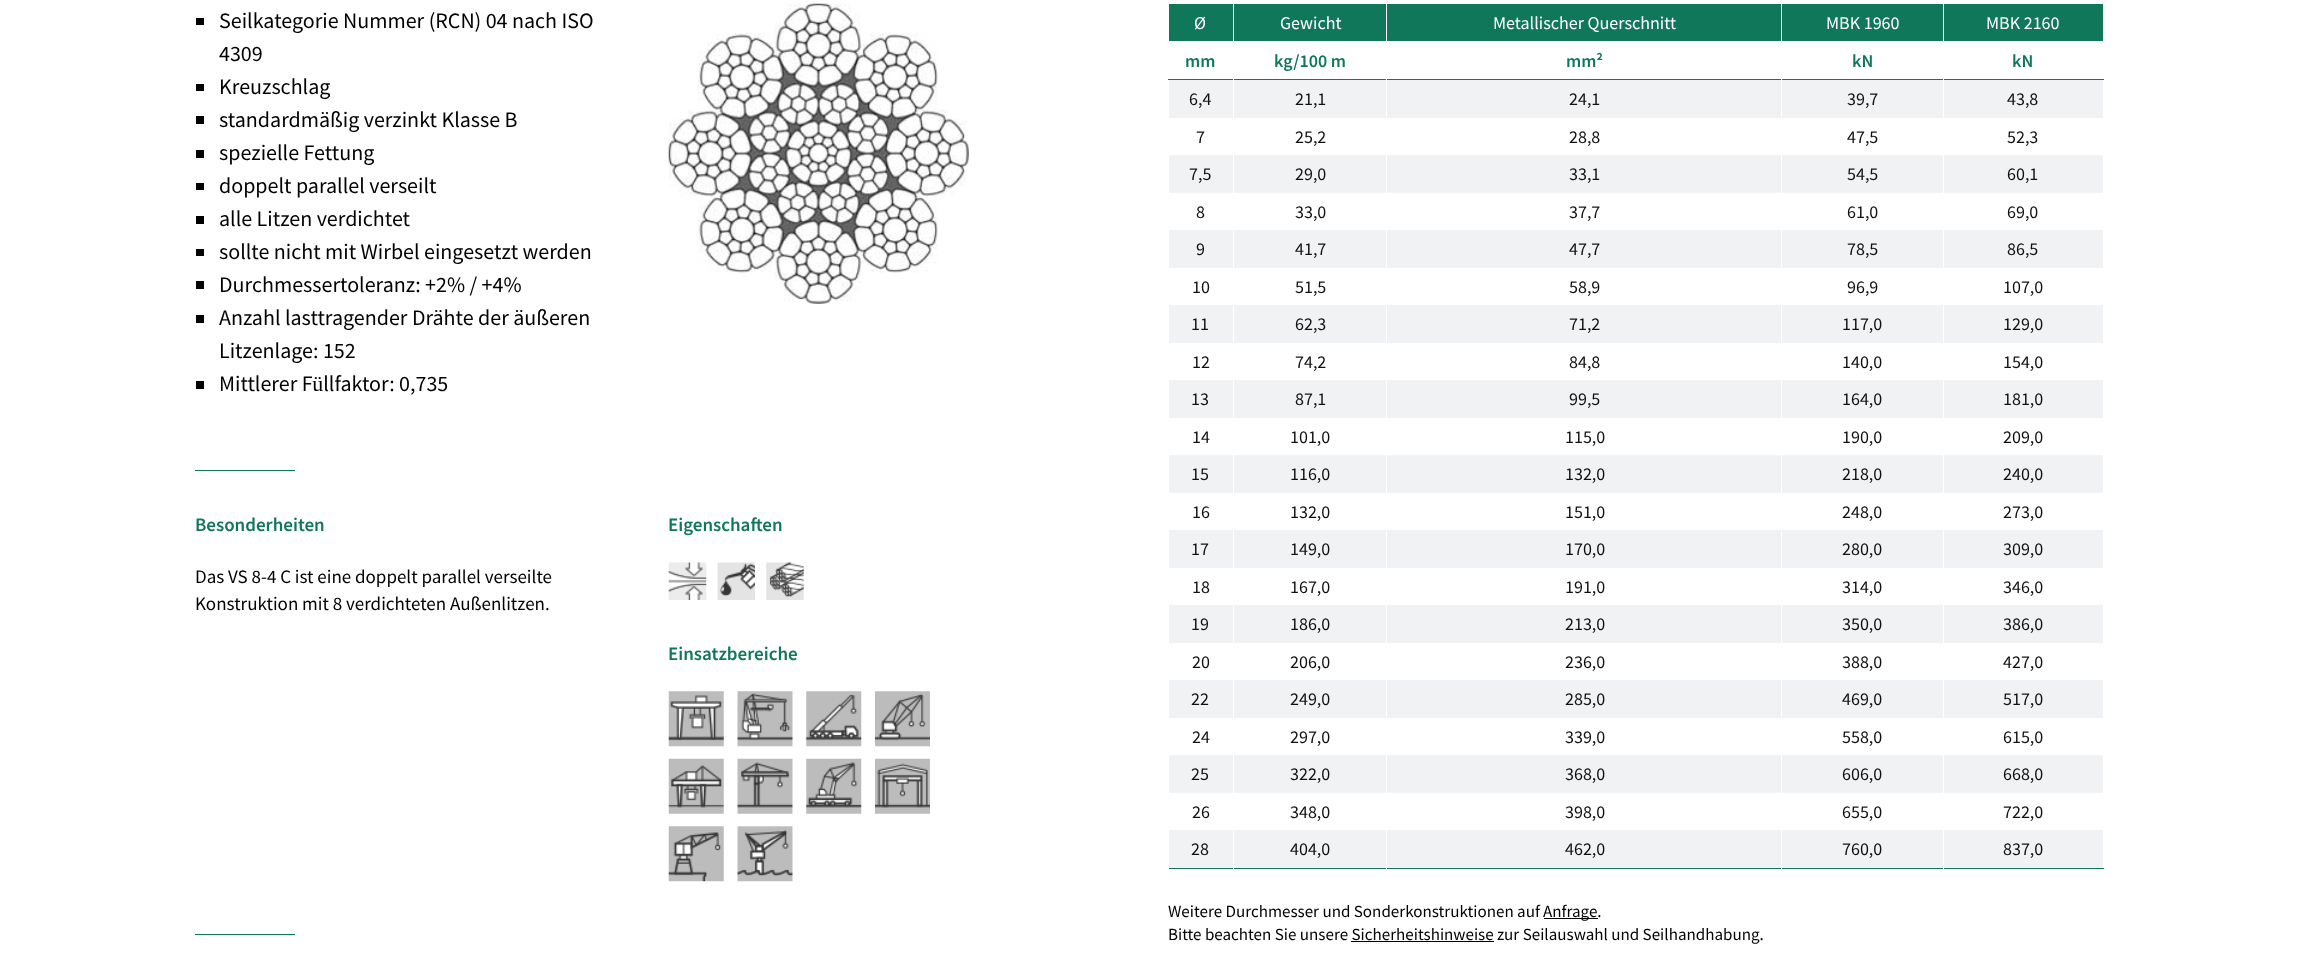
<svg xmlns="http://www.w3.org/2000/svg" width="2298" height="958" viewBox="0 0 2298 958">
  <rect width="100%" height="100%" fill="#fff"/>
  <path d="M196 18h8v7H196z" fill="#000"/>
  <path d="M196 84h8v7H196z" fill="#000"/>
  <path d="M196 116h8v8H196z" fill="#000"/>
  <path d="M196 150h8v8H196z" fill="#000"/>
  <path d="M196 183h8v7H196z" fill="#000"/>
  <path d="M196 216h8v8H196z" fill="#000"/>
  <path d="M196 249h8v7H196z" fill="#000"/>
  <path d="M196 281h8v8H196z" fill="#000"/>
  <path d="M196 315h8v8H196z" fill="#000"/>
  <path d="M196 381h8v8H196z" fill="#000"/>
  <image x="668" y="3" width="301" height="301" href="img/1.png"/>
  <path d="M195 470h100v1H195z" fill="#10775a"/>
  <image x="668" y="562" width="39" height="38" href="img/2.png"/>
  <image x="717" y="562" width="38" height="38" href="img/3.png"/>
  <image x="766" y="562" width="38" height="38" href="img/4.png"/>
  <image x="668" y="691" width="56" height="56" href="img/5.png"/>
  <image x="737" y="691" width="56" height="56" href="img/6.png"/>
  <image x="806" y="691" width="56" height="56" href="img/7.png"/>
  <image x="875" y="691" width="55" height="56" href="img/8.png"/>
  <image x="668" y="758" width="56" height="56" href="img/9.png"/>
  <image x="737" y="758" width="56" height="56" href="img/10.png"/>
  <image x="806" y="758" width="56" height="56" href="img/11.png"/>
  <image x="875" y="758" width="55" height="56" href="img/12.png"/>
  <image x="668" y="826" width="56" height="56" href="img/13.png"/>
  <image x="737" y="826" width="56" height="56" href="img/14.png"/>
  <path d="M195 934h100v1H195z" fill="#10775a"/>
  <path d="M1169 868h935v1H1169z" fill="#10775a"/>
  <path d="M1169 4h64v37H1169z" fill="#10775a"/>
  <path d="M1234 4h709v37H1234z" fill="#10775a"/>
  <path d="M1386 4h1v39H1386z" fill="#fff"/>
  <path d="M1781 4h1v39H1781z" fill="#fff"/>
  <path d="M1944 4h159v37H1944z" fill="#10775a"/>
  <path d="M1168 79h936v1H1168z" fill="#10775a"/>
  <path d="M1169 80h64v38H1169z" fill="#f1f2f3"/>
  <path d="M1233 79h1v1H1233z" fill="#fff"/>
  <path d="M1234 80h709v38H1234z" fill="#f1f2f3"/>
  <path d="M1386 79h1v40H1386z" fill="#fff"/>
  <path d="M1781 79h1v40H1781z" fill="#fff"/>
  <path d="M1943 79h1v1H1943z" fill="#fff"/>
  <path d="M1944 80h159v38H1944z" fill="#f1f2f3"/>
  <path d="M1169 155h64v38H1169z" fill="#f1f2f3"/>
  <path d="M1234 155h709v38H1234z" fill="#f1f2f3"/>
  <path d="M1386 155h1v39H1386z" fill="#fff"/>
  <path d="M1781 155h1v39H1781z" fill="#fff"/>
  <path d="M1944 155h159v38H1944z" fill="#f1f2f3"/>
  <path d="M1169 230h64v38H1169z" fill="#f1f2f3"/>
  <path d="M1234 230h709v38H1234z" fill="#f1f2f3"/>
  <path d="M1386 230h1v39H1386z" fill="#fff"/>
  <path d="M1781 230h1v39H1781z" fill="#fff"/>
  <path d="M1944 230h159v38H1944z" fill="#f1f2f3"/>
  <path d="M1169 305h64v38H1169z" fill="#f1f2f3"/>
  <path d="M1234 305h709v38H1234z" fill="#f1f2f3"/>
  <path d="M1386 305h1v39H1386z" fill="#fff"/>
  <path d="M1781 305h1v39H1781z" fill="#fff"/>
  <path d="M1944 305h159v38H1944z" fill="#f1f2f3"/>
  <path d="M1169 380h64v38H1169z" fill="#f1f2f3"/>
  <path d="M1234 380h709v38H1234z" fill="#f1f2f3"/>
  <path d="M1386 380h1v39H1386z" fill="#fff"/>
  <path d="M1781 380h1v39H1781z" fill="#fff"/>
  <path d="M1944 380h159v38H1944z" fill="#f1f2f3"/>
  <path d="M1169 455h64v38H1169z" fill="#f1f2f3"/>
  <path d="M1234 455h709v38H1234z" fill="#f1f2f3"/>
  <path d="M1386 455h1v39H1386z" fill="#fff"/>
  <path d="M1781 455h1v39H1781z" fill="#fff"/>
  <path d="M1944 455h159v38H1944z" fill="#f1f2f3"/>
  <path d="M1169 530h64v38H1169z" fill="#f1f2f3"/>
  <path d="M1234 530h709v38H1234z" fill="#f1f2f3"/>
  <path d="M1386 530h1v39H1386z" fill="#fff"/>
  <path d="M1781 530h1v39H1781z" fill="#fff"/>
  <path d="M1944 530h159v38H1944z" fill="#f1f2f3"/>
  <path d="M1169 605h64v38H1169z" fill="#f1f2f3"/>
  <path d="M1234 605h709v38H1234z" fill="#f1f2f3"/>
  <path d="M1386 605h1v39H1386z" fill="#fff"/>
  <path d="M1781 605h1v39H1781z" fill="#fff"/>
  <path d="M1944 605h159v38H1944z" fill="#f1f2f3"/>
  <path d="M1169 680h64v38H1169z" fill="#f1f2f3"/>
  <path d="M1234 680h709v38H1234z" fill="#f1f2f3"/>
  <path d="M1386 680h1v39H1386z" fill="#fff"/>
  <path d="M1781 680h1v39H1781z" fill="#fff"/>
  <path d="M1944 680h159v38H1944z" fill="#f1f2f3"/>
  <path d="M1169 755h64v38H1169z" fill="#f1f2f3"/>
  <path d="M1234 755h709v38H1234z" fill="#f1f2f3"/>
  <path d="M1386 755h1v39H1386z" fill="#fff"/>
  <path d="M1781 755h1v39H1781z" fill="#fff"/>
  <path d="M1944 755h159v38H1944z" fill="#f1f2f3"/>
  <path d="M1169 830h64v38H1169z" fill="#f1f2f3"/>
  <path d="M1233 868h1v1H1233z" fill="#fff"/>
  <path d="M1234 830h709v38H1234z" fill="#f1f2f3"/>
  <path d="M1386 830h1v39H1386z" fill="#fff"/>
  <path d="M1781 830h1v39H1781z" fill="#fff"/>
  <path d="M1943 868h1v1H1943z" fill="#fff"/>
  <path d="M1944 830h159v38H1944z" fill="#f1f2f3"/>
  <path d="M1544 918h54v1H1544z" fill="#000"/>
  <path d="M1351 941h143v1H1351z" fill="#000"/>
  <g font-family="Source Sans Pro" font-size="22" fill="#000">
    <text x="219" y="28">Seilkategorie Nummer (RCN) 04 nach ISO</text>
    <text x="219" y="61">4309</text>
    <text x="219" y="94">Kreuzschlag</text>
    <text x="219" y="127">standardmäßig verzinkt Klasse B</text>
    <text x="219" y="160">spezielle Fettung</text>
    <text x="219" y="193">doppelt parallel verseilt</text>
    <text x="219" y="226">alle Litzen verdichtet</text>
    <text x="219" y="259">sollte nicht mit Wirbel eingesetzt werden</text>
    <text x="219" y="292">Durchmessertoleranz: +2% / +4%</text>
    <text x="219" y="325">Anzahl lasttragender Drähte der äußeren</text>
    <text x="219" y="358">Litzenlage: 152</text>
    <text x="219" y="391">Mittlerer Füllfaktor: 0,735</text>
  </g>
  <text x="195" y="531" font-family="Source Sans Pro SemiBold" font-size="19" font-weight="600" fill="#10775a">Besonderheiten</text>
  <g font-family="Source Sans Pro" font-size="19" fill="#000">
    <text x="195" y="583">Das VS 8-4 C ist eine doppelt parallel verseilte</text>
    <text x="195" y="610">Konstruktion mit 8 verdichteten Außenlitzen.</text>
  </g>
  <g font-family="Source Sans Pro SemiBold" font-size="19" font-weight="600" fill="#10775a">
    <text x="668" y="531">Eigenschaften</text>
    <text x="668" y="660">Einsatzbereiche</text>
  </g>
  <g font-family="Source Sans Pro" font-size="18" fill="#fff">
    <text x="1194" y="29">Ø</text>
    <text x="1280" y="29">Gewicht</text>
    <text x="1493" y="29">Metallischer Querschnitt</text>
    <text x="1826" y="29">MBK 1960</text>
    <text x="1986" y="29">MBK 2160</text>
  </g>
  <g font-family="Source Sans Pro SemiBold" font-size="18" font-weight="600" fill="#10775a">
    <text x="1185" y="67">mm</text>
    <text x="1274" y="67">kg/100 m</text>
    <text x="1566" y="67">mm²</text>
    <text x="1852" y="67">kN</text>
    <text x="2012" y="67">kN</text>
  </g>
  <g font-family="Source Sans Pro" font-size="18" fill="#111">
    <text x="1189" y="105">6,4</text>
    <text x="1295" y="105">21,1</text>
    <text x="1569" y="105">24,1</text>
    <text x="1847" y="105">39,7</text>
    <text x="2007" y="105">43,8</text>
    <text x="1196" y="143">7</text>
    <text x="1295" y="143">25,2</text>
    <text x="1569" y="143">28,8</text>
    <text x="1847" y="143">47,5</text>
    <text x="2007" y="143">52,3</text>
    <text x="1189" y="180">7,5</text>
    <text x="1295" y="180">29,0</text>
    <text x="1569" y="180">33,1</text>
    <text x="1847" y="180">54,5</text>
    <text x="2007" y="180">60,1</text>
    <text x="1196" y="218">8</text>
    <text x="1295" y="218">33,0</text>
    <text x="1569" y="218">37,7</text>
    <text x="1847" y="218">61,0</text>
    <text x="2007" y="218">69,0</text>
    <text x="1196" y="255">9</text>
    <text x="1295" y="255">41,7</text>
    <text x="1569" y="255">47,7</text>
    <text x="1847" y="255">78,5</text>
    <text x="2007" y="255">86,5</text>
    <text x="1192" y="293">10</text>
    <text x="1295" y="293">51,5</text>
    <text x="1569" y="293">58,9</text>
    <text x="1847" y="293">96,9</text>
    <text x="2003" y="293">107,0</text>
    <text x="1191" y="330">11</text>
    <text x="1295" y="330">62,3</text>
    <text x="1569" y="330">71,2</text>
    <text x="1842" y="330">117,0</text>
    <text x="2003" y="330">129,0</text>
    <text x="1192" y="368">12</text>
    <text x="1295" y="368">74,2</text>
    <text x="1569" y="368">84,8</text>
    <text x="1842" y="368">140,0</text>
    <text x="2003" y="368">154,0</text>
    <text x="1191" y="405">13</text>
    <text x="1295" y="405">87,1</text>
    <text x="1569" y="405">99,5</text>
    <text x="1842" y="405">164,0</text>
    <text x="2003" y="405">181,0</text>
    <text x="1192" y="443">14</text>
    <text x="1290" y="443">101,0</text>
    <text x="1565" y="443">115,0</text>
    <text x="1842" y="443">190,0</text>
    <text x="2003" y="443">209,0</text>
    <text x="1191" y="480">15</text>
    <text x="1290" y="480">116,0</text>
    <text x="1565" y="480">132,0</text>
    <text x="1842" y="480">218,0</text>
    <text x="2003" y="480">240,0</text>
    <text x="1192" y="518">16</text>
    <text x="1290" y="518">132,0</text>
    <text x="1565" y="518">151,0</text>
    <text x="1842" y="518">248,0</text>
    <text x="2003" y="518">273,0</text>
    <text x="1191" y="555">17</text>
    <text x="1290" y="555">149,0</text>
    <text x="1565" y="555">170,0</text>
    <text x="1842" y="555">280,0</text>
    <text x="2003" y="555">309,0</text>
    <text x="1192" y="593">18</text>
    <text x="1290" y="593">167,0</text>
    <text x="1565" y="593">191,0</text>
    <text x="1842" y="593">314,0</text>
    <text x="2003" y="593">346,0</text>
    <text x="1191" y="630">19</text>
    <text x="1290" y="630">186,0</text>
    <text x="1565" y="630">213,0</text>
    <text x="1842" y="630">350,0</text>
    <text x="2003" y="630">386,0</text>
    <text x="1192" y="668">20</text>
    <text x="1290" y="668">206,0</text>
    <text x="1565" y="668">236,0</text>
    <text x="1842" y="668">388,0</text>
    <text x="2003" y="668">427,0</text>
    <text x="1191" y="705">22</text>
    <text x="1290" y="705">249,0</text>
    <text x="1565" y="705">285,0</text>
    <text x="1842" y="705">469,0</text>
    <text x="2003" y="705">517,0</text>
    <text x="1192" y="743">24</text>
    <text x="1290" y="743">297,0</text>
    <text x="1565" y="743">339,0</text>
    <text x="1842" y="743">558,0</text>
    <text x="2003" y="743">615,0</text>
    <text x="1191" y="780">25</text>
    <text x="1290" y="780">322,0</text>
    <text x="1565" y="780">368,0</text>
    <text x="1842" y="780">606,0</text>
    <text x="2003" y="780">668,0</text>
    <text x="1192" y="818">26</text>
    <text x="1290" y="818">348,0</text>
    <text x="1565" y="818">398,0</text>
    <text x="1842" y="818">655,0</text>
    <text x="2003" y="818">722,0</text>
    <text x="1191" y="855">28</text>
    <text x="1290" y="855">404,0</text>
    <text x="1565" y="855">462,0</text>
    <text x="1842" y="855">760,0</text>
    <text x="2003" y="855">837,0</text>
  </g>
  <g font-family="Source Sans Pro" font-size="17" fill="#000">
    <text x="1168" y="917">Weitere Durchmesser und Sonderkonstruktionen auf</text>
    <text x="1543" y="917">Anfrage.</text>
    <text x="1168" y="940">Bitte beachten Sie unsere Sicherheitshinweise zur Seilauswahl und Seilhandhabung.</text>
  </g>
</svg>
